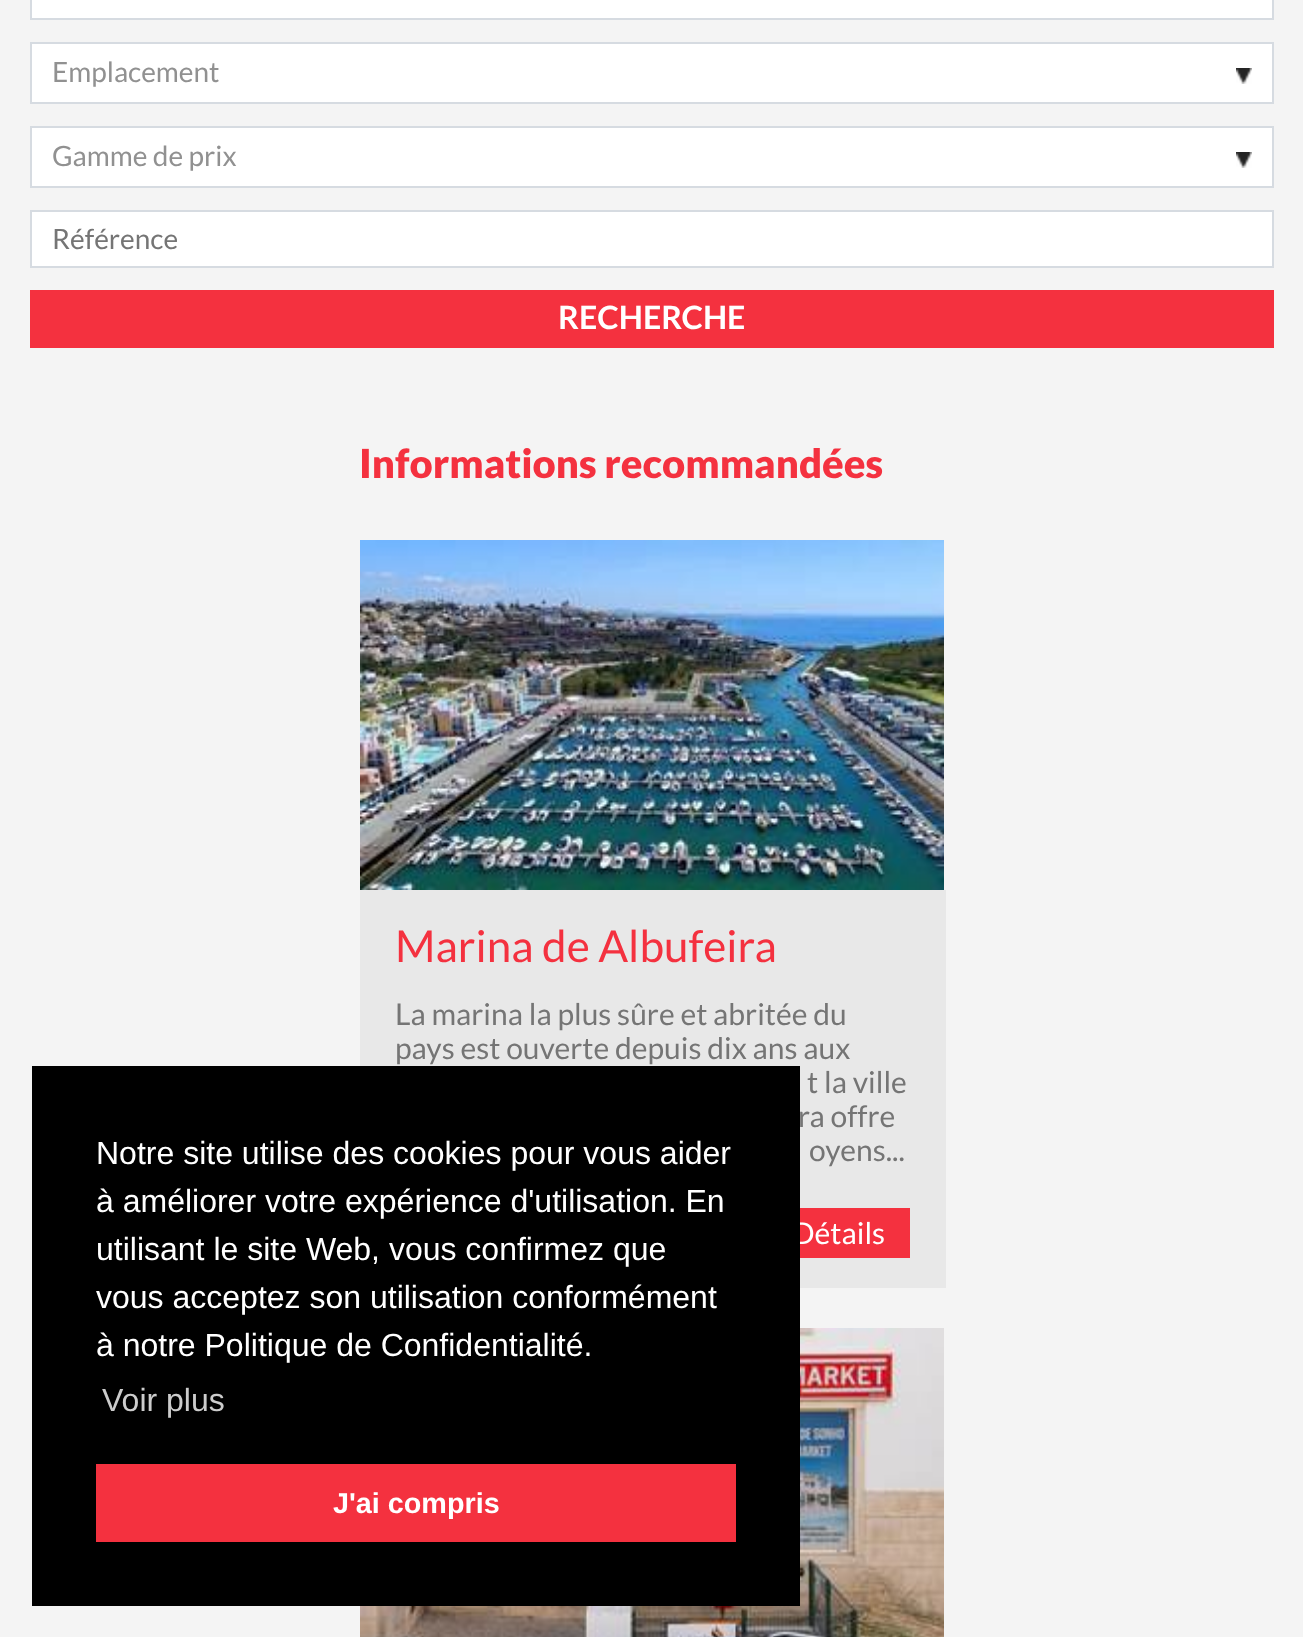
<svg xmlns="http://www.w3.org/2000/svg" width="1303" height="1637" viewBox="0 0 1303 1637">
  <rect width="100%" height="100%" fill="#f4f4f4"/>
  <path d="M31 -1h1242v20H31z" fill="#fff" stroke="#d6dbe1" stroke-width="2"/>
  <path d="M31 43h1242v60H31z" fill="#fff" stroke="#d6dbe1" stroke-width="2"/>
  <image x="1236" y="68" width="16" height="16" href="img/1.png"/>
  <path d="M31 127h1242v60H31z" fill="#fff" stroke="#d6dbe1" stroke-width="2"/>
  <image x="1236" y="152" width="16" height="16" href="img/1.png"/>
  <path d="M31 211h1242v56H31z" fill="#fff" stroke="#d6dbe1" stroke-width="2"/>
  <path d="M30 290h1244v58H30z" fill="#f4313f"/>
  <image x="360" y="540" width="584" height="350" href="img/2.png"/>
  <path d="M360 890h586v398H360z" fill="#e8e8e8"/>
  <path d="M800 1208h110v50H800z" fill="#f4313f"/>
  <image x="360" y="1328" width="584" height="309" href="img/3.png"/>
  <g font-family="Lato" font-size="28" fill="#919191">
    <text x="52" y="82">Emplacement</text>
    <text x="52" y="166">Gamme de prix</text>
  </g>
  <text x="52" y="249" font-family="Lato" font-size="28" fill="#757575">Référence</text>
  <text x="558" y="329" font-family="Lato" font-size="32" font-weight="bold" fill="#fff">RECHERCHE</text>
  <text x="359" y="478" font-family="Lato" font-size="40" font-weight="900" fill="#f4313f">Informations recommandées</text>
  <text x="395" y="962" font-family="Lato" font-size="44" fill="#f4313f">Marina de Albufeira</text>
  <g font-family="Lato" font-size="30" fill="#757575">
    <text x="395" y="1025">La marina la plus sûre et abritée du</text>
    <text x="395" y="1059">pays est ouverte depuis dix ans aux</text>
    <text x="807" y="1093">t la ville</text>
    <text x="798" y="1127">ra offre</text>
    <text x="809" y="1161">oyens...</text>
  </g>
  <text x="792" y="1244" font-family="Lato" font-size="30" fill="#fff">Détails</text>
  <path d="M32 1066h768v540H32z" fill="#000"/>
  <g font-family="Liberation Sans" font-size="32" fill="#fff">
    <text x="96" y="1164">Notre site utilise des cookies pour vous aider</text>
    <text x="96" y="1212">à améliorer votre expérience d'utilisation. En</text>
    <text x="96" y="1260">utilisant le site Web, vous confirmez que</text>
    <text x="96" y="1308">vous acceptez son utilisation conformément</text>
    <text x="96" y="1356">à notre Politique de Confidentialité.</text>
  </g>
  <text x="102" y="1411" font-family="Liberation Sans" font-size="32" fill="#ccc">Voir plus</text>
  <path d="M96 1464h640v78H96z" fill="#f4313f"/>
  <text x="333" y="1513" font-family="Liberation Sans" font-size="28.75" font-weight="bold" fill="#fff">J'ai compris</text>
</svg>
